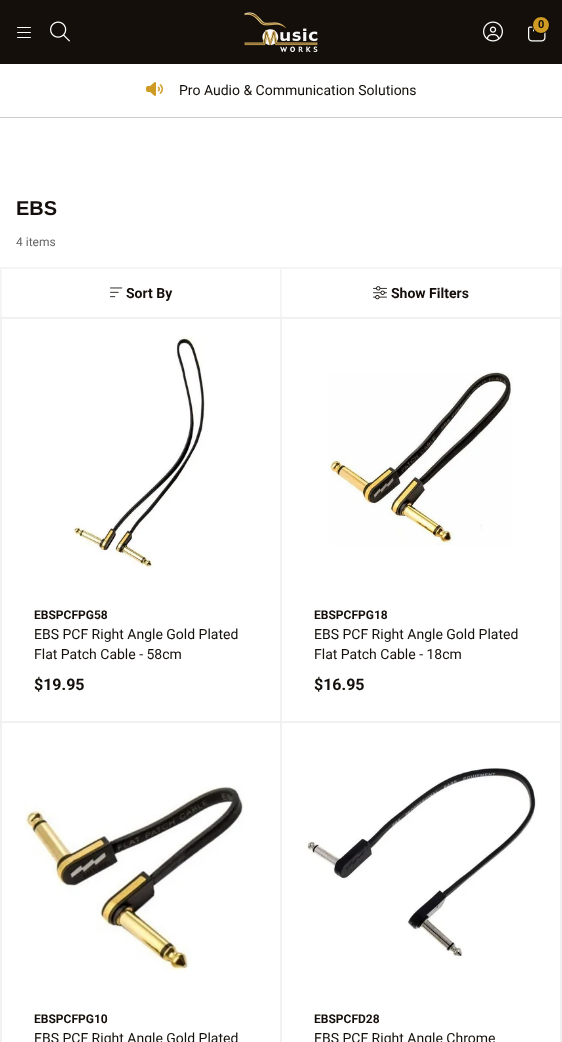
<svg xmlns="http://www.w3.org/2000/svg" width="562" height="1042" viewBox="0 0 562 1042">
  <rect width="100%" height="100%" fill="#fff"/>
  <path d="M0 0h562v64H0z" fill="#140f0a"/>
  <image x="17" y="27" width="14" height="11" href="img/1.png"/>
  <image x="50" y="21" width="20" height="21" href="img/2.png"/>
  <image x="244" y="12" width="74" height="40" href="img/3.png"/>
  <image x="483" y="21" width="20" height="21" href="img/4.png"/>
  <image x="528" y="26" width="18" height="16" href="img/5.png"/>
  <circle cx="541" cy="25" r="8.5" fill="#cf9b24" stroke="#000"/>
  <path d="M0 117h562v1H0z" fill="#ccc"/>
  <image x="146" y="82" width="17" height="14" href="img/6.png"/>
  <path d="M1 268h280v50H1z" fill="none" stroke="#f5f5f5" stroke-width="2"/>
  <image x="110" y="287" width="13" height="11" href="img/7.png"/>
  <path d="M281 268h280v50H281z" fill="none" stroke="#f5f5f5" stroke-width="2"/>
  <image x="373" y="286" width="14" height="14" href="img/8.png"/>
  <path d="M1 318h279v404H1z" fill="none" stroke="#f1f1f1" stroke-width="2"/>
  <path d="M279 319h1v402H279z" fill="#fff"/>
  <image x="73" y="335" width="132" height="235" href="img/9.png"/>
  <path d="M282 318h279v404H282z" fill="none" stroke="#f1f1f1" stroke-width="2"/>
  <path d="M282 319h1v402H282z" fill="#fff"/>
  <image x="329" y="371" width="184" height="175" href="img/10.png"/>
  <path d="M1 722h279v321H1z" fill="none" stroke="#f1f1f1" stroke-width="2"/>
  <path d="M279 723h1v319H279z" fill="#fff"/>
  <image x="23" y="786" width="221" height="187" href="img/11.png"/>
  <path d="M282 722h279v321H282z" fill="none" stroke="#f1f1f1" stroke-width="2"/>
  <path d="M282 723h1v319H282z" fill="#fff"/>
  <image x="306" y="768" width="231" height="189" href="img/12.png"/>
  <text x="538" y="28" font-family="Roboto" font-size="11" font-weight="bold" fill="#140f0a">0</text>
  <text x="179" y="95" font-family="Roboto" font-size="14" fill="#140f0a">Pro Audio &amp; Communication Solutions</text>
  <text x="16" y="215" font-family="Liberation Sans" font-size="20" font-weight="bold" fill="#140f0a">EBS</text>
  <text x="16" y="246" font-family="Roboto" font-size="12" fill="#666">4 items</text>
  <g font-family="Roboto" font-size="14" font-weight="bold" fill="#140f0a">
    <text x="126" y="298">Sort By</text>
    <text x="391" y="298">Show Filters</text>
  </g>
  <text x="34" y="619" font-family="Roboto" font-size="12" font-weight="bold" fill="#140f0a">EBSPCFPG58</text>
  <g font-family="Roboto" font-size="14" fill="#140f0a">
    <text x="34" y="639">EBS PCF Right Angle Gold Plated</text>
    <text x="34" y="659">Flat Patch Cable - 58cm</text>
  </g>
  <text x="34" y="690" font-family="Roboto" font-size="16" font-weight="bold" fill="#140f0a">$19.95</text>
  <text x="314" y="619" font-family="Roboto" font-size="12" font-weight="bold" fill="#140f0a">EBSPCFPG18</text>
  <g font-family="Roboto" font-size="14" fill="#140f0a">
    <text x="314" y="639">EBS PCF Right Angle Gold Plated</text>
    <text x="314" y="659">Flat Patch Cable - 18cm</text>
  </g>
  <text x="314" y="690" font-family="Roboto" font-size="16" font-weight="bold" fill="#140f0a">$16.95</text>
  <text x="34" y="1023" font-family="Roboto" font-size="12" font-weight="bold" fill="#140f0a">EBSPCFPG10</text>
  <text x="34" y="1043" font-family="Roboto" font-size="14" fill="#140f0a">EBS PCF Right Angle Gold Plated</text>
  <text x="314" y="1023" font-family="Roboto" font-size="12" font-weight="bold" fill="#140f0a">EBSPCFD28</text>
  <text x="314" y="1043" font-family="Roboto" font-size="14" fill="#140f0a">EBS PCF Right Angle Chrome</text>
</svg>
